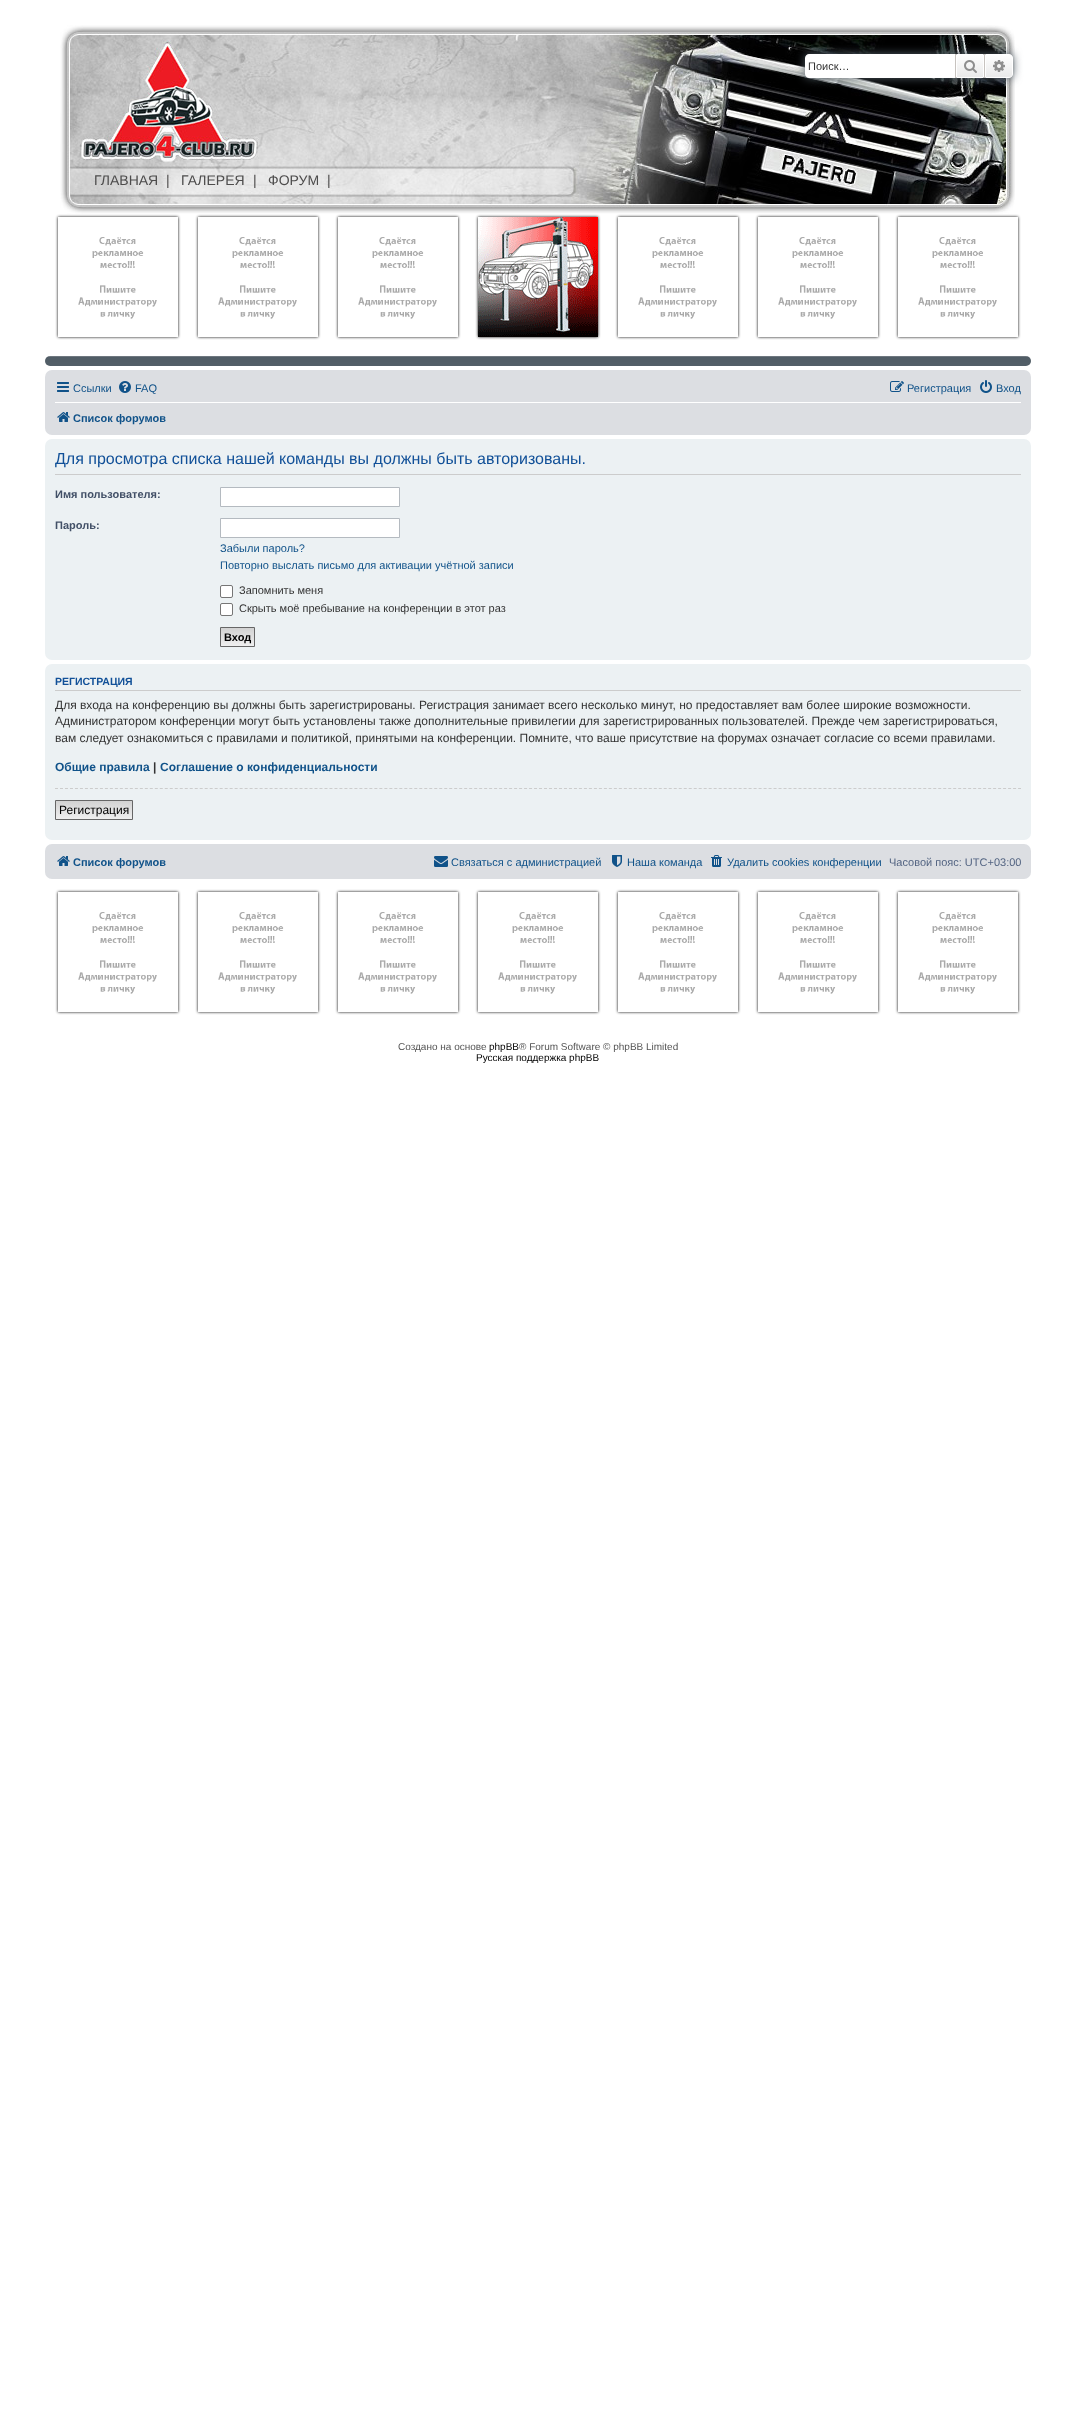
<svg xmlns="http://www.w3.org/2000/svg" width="1076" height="2409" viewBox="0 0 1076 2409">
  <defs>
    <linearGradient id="g1" gradientUnits="userSpaceOnUse" x1="970" y1="54" x2="970" y2="78"><stop offset="0" stop-color="#fff"/><stop offset="1" stop-color="#e9e9e9"/></linearGradient>
    <linearGradient id="g2" gradientUnits="userSpaceOnUse" x1="999" y1="54" x2="999" y2="78"><stop offset="0" stop-color="#fff"/><stop offset="1" stop-color="#e9e9e9"/></linearGradient>
    <clipPath id="clip1"><path d="M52 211H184V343H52ZM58 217H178V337H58Z" clip-rule="evenodd"/></clipPath>
    <clipPath id="clip2"><path d="M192 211H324V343H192ZM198 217H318V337H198Z" clip-rule="evenodd"/></clipPath>
    <clipPath id="clip3"><path d="M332 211H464V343H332ZM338 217H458V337H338Z" clip-rule="evenodd"/></clipPath>
    <clipPath id="clip4"><path d="M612 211H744V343H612ZM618 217H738V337H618Z" clip-rule="evenodd"/></clipPath>
    <clipPath id="clip5"><path d="M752 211H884V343H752ZM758 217H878V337H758Z" clip-rule="evenodd"/></clipPath>
    <clipPath id="clip6"><path d="M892 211H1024V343H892ZM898 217H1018V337H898Z" clip-rule="evenodd"/></clipPath>
    <linearGradient id="g3" gradientUnits="userSpaceOnUse" x1="238" y1="628" x2="238" y2="646"><stop offset="0" stop-color="#d2d2d2"/><stop offset="1" stop-color="#efefef"/></linearGradient>
    <linearGradient id="g4" gradientUnits="userSpaceOnUse" x1="94" y1="801" x2="94" y2="819"><stop offset="0" stop-color="#d2d2d2"/><stop offset="1" stop-color="#efefef"/></linearGradient>
    <clipPath id="clip7"><path d="M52 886H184V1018H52ZM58 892H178V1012H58Z" clip-rule="evenodd"/></clipPath>
    <clipPath id="clip8"><path d="M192 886H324V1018H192ZM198 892H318V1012H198Z" clip-rule="evenodd"/></clipPath>
    <clipPath id="clip9"><path d="M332 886H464V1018H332ZM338 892H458V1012H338Z" clip-rule="evenodd"/></clipPath>
    <clipPath id="clip10"><path d="M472 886H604V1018H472ZM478 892H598V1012H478Z" clip-rule="evenodd"/></clipPath>
    <clipPath id="clip11"><path d="M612 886H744V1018H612ZM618 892H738V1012H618Z" clip-rule="evenodd"/></clipPath>
    <clipPath id="clip12"><path d="M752 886H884V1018H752ZM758 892H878V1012H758Z" clip-rule="evenodd"/></clipPath>
    <clipPath id="clip13"><path d="M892 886H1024V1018H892ZM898 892H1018V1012H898Z" clip-rule="evenodd"/></clipPath>
  </defs>
  <rect width="100%" height="100%" fill="#fff"/>
  <image x="60" y="25" width="955" height="189" href="img/1.png"/>
  <rect x="805" y="54" width="208" height="24" rx="4" fill="#505c65" filter="blur(5px)"/>
  <path d="M809 54H955V78H809C807 78 805 76 805 74V58C805 56 807 54 809 54Z" fill="#fff"/>
  <path d="M957 55h26v22H957z" fill="url(#g1)"/>
  <path d="M956.5 54.5h27v23H956.5z" fill="none" stroke="#fff"/>
  <path d="M984 54h1v24H984z" fill="#c7c3bf"/>
  <path d="M955 54h1v24H955z" fill="#c7c3bf"/>
  <image x="964" y="60" width="13" height="13" href="img/2.png"/>
  <path d="M985.5 54.5H1009C1011 54.5 1012.5 56 1012.5 58V74C1012.5 76 1011 77.5 1009 77.5H985.5Z" fill="url(#g2)" stroke="#fff"/>
  <image x="993" y="60" width="12" height="12" href="img/3.png"/>
  <g clip-path="url(#clip1)">
    <path d="M58 217h120v120H58z" fill="#000" filter="blur(1.5px)"/>
  </g>
  <image x="78" y="237" width="79" height="82" href="img/4.png"/>
  <g clip-path="url(#clip2)">
    <path d="M198 217h120v120H198z" fill="#000" filter="blur(1.5px)"/>
  </g>
  <image x="218" y="237" width="79" height="82" href="img/5.png"/>
  <g clip-path="url(#clip3)">
    <path d="M338 217h120v120H338z" fill="#000" filter="blur(1.5px)"/>
  </g>
  <image x="358" y="237" width="79" height="82" href="img/5.png"/>
  <path d="M478 217h120v120H478z" fill="#000" filter="blur(1.5px)"/>
  <image x="478" y="217" width="120" height="120" href="img/6.png"/>
  <g clip-path="url(#clip4)">
    <path d="M618 217h120v120H618z" fill="#000" filter="blur(1.5px)"/>
  </g>
  <image x="638" y="237" width="79" height="82" href="img/5.png"/>
  <g clip-path="url(#clip5)">
    <path d="M758 217h120v120H758z" fill="#000" filter="blur(1.5px)"/>
  </g>
  <image x="778" y="237" width="79" height="82" href="img/5.png"/>
  <g clip-path="url(#clip6)">
    <path d="M898 217h120v120H898z" fill="#000" filter="blur(1.5px)"/>
  </g>
  <image x="918" y="237" width="79" height="82" href="img/7.png"/>
  <image x="45" y="356" width="986" height="10" href="img/8.png"/>
  <rect x="45" y="370" width="986" height="65" rx="7" fill="#dcdee2"/>
  <image x="57" y="382" width="12" height="10" href="img/9.png"/>
  <image x="119" y="381" width="12" height="12" href="img/10.png"/>
  <image x="890" y="381" width="14" height="11" href="img/11.png"/>
  <image x="980" y="380" width="12" height="13" href="img/12.png"/>
  <path d="M55 402h966v1H55z" fill="#fff"/>
  <image x="57" y="412" width="13" height="10" href="img/13.png"/>
  <rect x="45" y="439" width="986" height="221" rx="7" fill="#ecf1f3"/>
  <path d="M55 474h966v1H55z" fill="#ccc"/>
  <path d="M220.5 487.5h179v19H220.5z" fill="#fff" stroke="#b4bac0"/>
  <path d="M220.5 518.5h179v19H220.5z" fill="#fff" stroke="#b4bac0"/>
  <rect x="220.5" y="585.5" width="12" height="12" rx="1.5" fill="#fff" stroke="#767676"/>
  <rect x="220.5" y="603.5" width="12" height="12" rx="1.5" fill="#fff" stroke="#767676"/>
  <path d="M221 628h33v18H221z" fill="url(#g3)"/>
  <path d="M220.5 627.5h34v19H220.5z" fill="none" stroke="#666"/>
  <rect x="45" y="664" width="986" height="176" rx="7" fill="#ecf1f3"/>
  <path d="M55 690h966v1H55z" fill="#ccc"/>
  <path d="M55 788.5H1021" fill="none" stroke="#ccc" stroke-dasharray="3 1.99"/>
  <path d="M56 801h76v18H56z" fill="url(#g4)"/>
  <path d="M55.5 800.5h77v19H55.5z" fill="none" stroke="#666"/>
  <rect x="45" y="844" width="986" height="35" rx="7" fill="#dcdee2"/>
  <image x="57" y="856" width="13" height="10" href="img/13.png"/>
  <image x="434" y="856" width="14" height="11" href="img/14.png"/>
  <image x="612" y="855" width="10" height="12" href="img/15.png"/>
  <image x="711" y="855" width="11" height="12" href="img/16.png"/>
  <g clip-path="url(#clip7)">
    <path d="M58 892h120v120H58z" fill="#000" filter="blur(1.5px)"/>
  </g>
  <image x="78" y="912" width="79" height="82" href="img/4.png"/>
  <g clip-path="url(#clip8)">
    <path d="M198 892h120v120H198z" fill="#000" filter="blur(1.5px)"/>
  </g>
  <image x="218" y="912" width="79" height="82" href="img/5.png"/>
  <g clip-path="url(#clip9)">
    <path d="M338 892h120v120H338z" fill="#000" filter="blur(1.5px)"/>
  </g>
  <image x="358" y="912" width="79" height="82" href="img/5.png"/>
  <g clip-path="url(#clip10)">
    <path d="M478 892h120v120H478z" fill="#000" filter="blur(1.5px)"/>
  </g>
  <image x="498" y="912" width="79" height="82" href="img/17.png"/>
  <g clip-path="url(#clip11)">
    <path d="M618 892h120v120H618z" fill="#000" filter="blur(1.5px)"/>
  </g>
  <image x="638" y="912" width="79" height="82" href="img/5.png"/>
  <g clip-path="url(#clip12)">
    <path d="M758 892h120v120H758z" fill="#000" filter="blur(1.5px)"/>
  </g>
  <image x="778" y="912" width="79" height="82" href="img/5.png"/>
  <g clip-path="url(#clip13)">
    <path d="M898 892h120v120H898z" fill="#000" filter="blur(1.5px)"/>
  </g>
  <image x="918" y="912" width="79" height="82" href="img/7.png"/>
  <text x="808" y="70" font-family="Liberation Sans" font-size="11" fill="#333">Поиск…</text>
  <g font-family="Liberation Sans" font-size="14" fill="#4d4c4c">
    <text x="94" y="185">ГЛАВНАЯ</text>
    <text x="166" y="185">|</text>
    <text x="181" y="185">ГАЛЕРЕЯ</text>
    <text x="253" y="185">|</text>
    <text x="268" y="185">ФОРУМ</text>
    <text x="327" y="185">|</text>
  </g>
  <g font-family="Liberation Sans" font-size="11" fill="#105289">
    <text x="73" y="392">Ссылки</text>
    <text x="135" y="392">FAQ</text>
    <text x="907" y="392">Регистрация</text>
    <text x="996" y="392">Вход</text>
  </g>
  <text x="73" y="422" font-family="Liberation Sans" font-size="11" font-weight="bold" fill="#105289">Список форумов</text>
  <text x="55" y="464" font-family="Liberation Sans" font-size="16" fill="#115098">Для просмотра списка нашей команды вы должны быть авторизованы.</text>
  <g font-family="Liberation Sans" font-size="11" font-weight="bold" fill="#425067">
    <text x="55" y="498">Имя пользователя:</text>
    <text x="55" y="529">Пароль:</text>
  </g>
  <g font-family="Liberation Sans" font-size="11" fill="#105289">
    <text x="220" y="552">Забыли пароль?</text>
    <text x="220" y="569">Повторно выслать письмо для активации учётной записи</text>
  </g>
  <g font-family="Liberation Sans" font-size="11" fill="#333">
    <text x="239" y="594">Запомнить меня</text>
    <text x="239" y="612">Скрыть моё пребывание на конференции в этот раз</text>
  </g>
  <text x="224" y="641" font-family="Liberation Sans" font-size="11" font-weight="bold" fill="#000">Вход</text>
  <text x="55" y="685" font-family="Liberation Sans" font-size="10.5" font-weight="bold" fill="#115098">РЕГИСТРАЦИЯ</text>
  <g font-family="Liberation Sans" font-size="12" fill="#333">
    <text x="55" y="709">Для входа на конференцию вы должны быть зарегистрированы. Регистрация занимает всего несколько минут, но предоставляет вам более широкие возможности.</text>
    <text x="55" y="725">Администратором конференции могут быть установлены также дополнительные привилегии для зарегистрированных пользователей. Прежде чем зарегистрироваться,</text>
    <text x="55" y="742">вам следует ознакомиться с правилами и политикой, принятыми на конференции. Помните, что ваше присутствие на форумах означает согласие со всеми правилами.</text>
  </g>
  <text x="55" y="771" font-family="Liberation Sans" font-size="12" font-weight="bold" fill="#105289">Общие правила</text>
  <text x="153" y="771" font-family="Liberation Sans" font-size="12" font-weight="bold" fill="#333">|</text>
  <text x="160" y="771" font-family="Liberation Sans" font-size="12" font-weight="bold" fill="#105289">Соглашение о конфиденциальности</text>
  <text x="59" y="814" font-family="Liberation Sans" font-size="12" fill="#000">Регистрация</text>
  <text x="73" y="866" font-family="Liberation Sans" font-size="11" font-weight="bold" fill="#105289">Список форумов</text>
  <g font-family="Liberation Sans" font-size="11" fill="#105289">
    <text x="451" y="866">Связаться с администрацией</text>
    <text x="627" y="866">Наша команда</text>
    <text x="727" y="866">Удалить cookies конференции</text>
  </g>
  <text x="889" y="866" font-family="Liberation Sans" font-size="11" fill="#536482">Часовой пояс: UTC+03:00</text>
  <text x="398" y="1050" font-family="Liberation Sans" font-size="10" fill="#555">Создано на основе</text>
  <text x="489" y="1050" font-family="Liberation Sans" font-size="10" fill="#000">phpBB</text>
  <text x="519" y="1050" font-family="Liberation Sans" font-size="10" fill="#555">® Forum Software © phpBB Limited</text>
  <text x="476" y="1061" font-family="Liberation Sans" font-size="10" fill="#000">Русская поддержка phpBB</text>
</svg>
